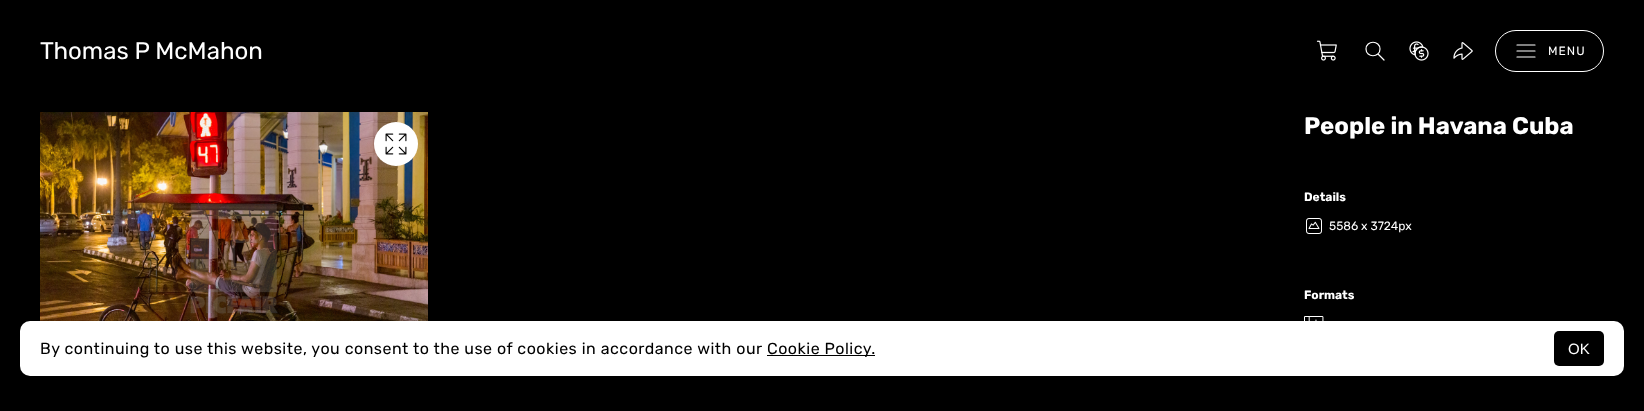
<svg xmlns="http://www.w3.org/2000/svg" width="1644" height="411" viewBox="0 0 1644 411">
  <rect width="100%" height="100%" fill="#000"/>
  <image x="1316" y="40" width="21" height="21" href="img/1.png"/>
  <path d="M1384 60L1378 54M1380 49C1380 58 1366 58 1366 49C1366 40 1380 40 1380 49Z" fill="none" stroke="#fff" stroke-width="1.2" stroke-linecap="round" stroke-linejoin="round"/>
  <image x="1409" y="41" width="20" height="20" href="img/2.png"/>
  <image x="1453" y="42" width="20" height="18" href="img/3.png"/>
  <rect x="1495.5" y="30.5" width="108" height="41" rx="20.5" fill="none" stroke="#fff"/>
  <path d="M1517 51H1535M1517 45H1535M1517 57H1535" fill="none" stroke="#fff" stroke-width="1.2" stroke-linecap="round" stroke-linejoin="round"/>
  <image x="40" y="112" width="388" height="209" href="img/4.png"/>
  <circle cx="396" cy="144" r="22" fill="#fff"/>
  <image x="385" y="133" width="22" height="22" href="img/5.png"/>
  <image x="1306" y="218" width="16" height="16" href="img/6.png"/>
  <image x="1304" y="316" width="20" height="5" href="img/7.png"/>
  <rect x="20" y="321" width="1604" height="55" rx="10" fill="#fff"/>
  <path d="M767 355h108v1H767z" fill="#000"/>
  <rect x="1554" y="331" width="50" height="35" rx="5" fill="#000"/>
  <text x="40" y="59" font-family="Rubik" font-size="24" fill="#fff">Thomas P McMahon</text>
  <text x="1548" y="55" font-family="Rubik" font-size="12" letter-spacing="1" fill="#fff">MENU</text>
  <text x="1304" y="134" font-family="Rubik" font-size="24" font-weight="bold" fill="#fff">People in Havana Cuba</text>
  <text x="1304" y="201" font-family="Rubik" font-size="12" font-weight="bold" fill="#fff">Details</text>
  <text x="1329" y="230" font-family="Rubik" font-size="12" fill="#fff">5586 x 3724px</text>
  <text x="1304" y="299" font-family="Rubik" font-size="12" font-weight="bold" fill="#fff">Formats</text>
  <g font-family="Rubik" font-size="16" letter-spacing="0.5" fill="#000">
    <text x="40" y="354">By continuing to use this website, you consent to the use of cookies in accordance with our</text>
    <text x="767" y="354">Cookie Policy.</text>
  </g>
  <text x="1568" y="354" font-family="Liberation Sans" font-size="15" fill="#fff">OK</text>
</svg>
